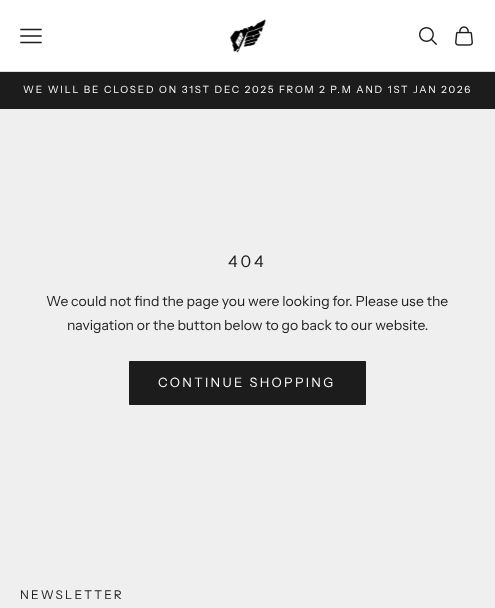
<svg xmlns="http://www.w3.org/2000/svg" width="495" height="608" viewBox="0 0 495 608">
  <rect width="100%" height="100%" fill="#fff"/>
  <path d="M0 71h495v1H0z" fill="#ddd"/>
  <path d="M21 42.5H41M21 36H41M21 29.5H41" fill="none" stroke="#1c1c1c" stroke-width="1.4" stroke-linecap="square"/>
  <image x="230" y="19" width="37" height="34" href="img/1.png"/>
  <image x="419" y="27" width="18" height="18" href="img/2.png"/>
  <image x="455" y="26" width="18" height="20" href="img/3.png"/>
  <path d="M0 72h495v37H0z" fill="#1c1c1c"/>
  <path d="M0 109h495v499H0z" fill="#efefef"/>
  <path d="M129.5 361.5h236v43H129.5z" fill="#1c1c1c" stroke="#1c1c1c"/>
  <text x="23" y="93" font-family="Instrument Sans" font-size="10" letter-spacing="1.8" fill="#fff">WE WILL BE CLOSED ON 31ST DEC 2025 FROM 2 P.M AND 1ST JAN 2026</text>
  <text x="228" y="267" font-family="Instrument Sans" font-size="16" letter-spacing="3" fill="#1c1c1c">404</text>
  <g font-family="Instrument Sans" font-size="14" fill="#1c1c1c">
    <text x="46" y="306">We could not find the page you were looking for. Please use the</text>
    <text x="67" y="330">navigation or the button below to go back to our website.</text>
  </g>
  <text x="158" y="387" font-family="Instrument Sans" font-size="13" letter-spacing="2.3" fill="#fff">CONTINUE SHOPPING</text>
  <text x="20" y="599" font-family="Instrument Sans" font-size="12" letter-spacing="2.25" fill="#1c1c1c">NEWSLETTER</text>
</svg>
